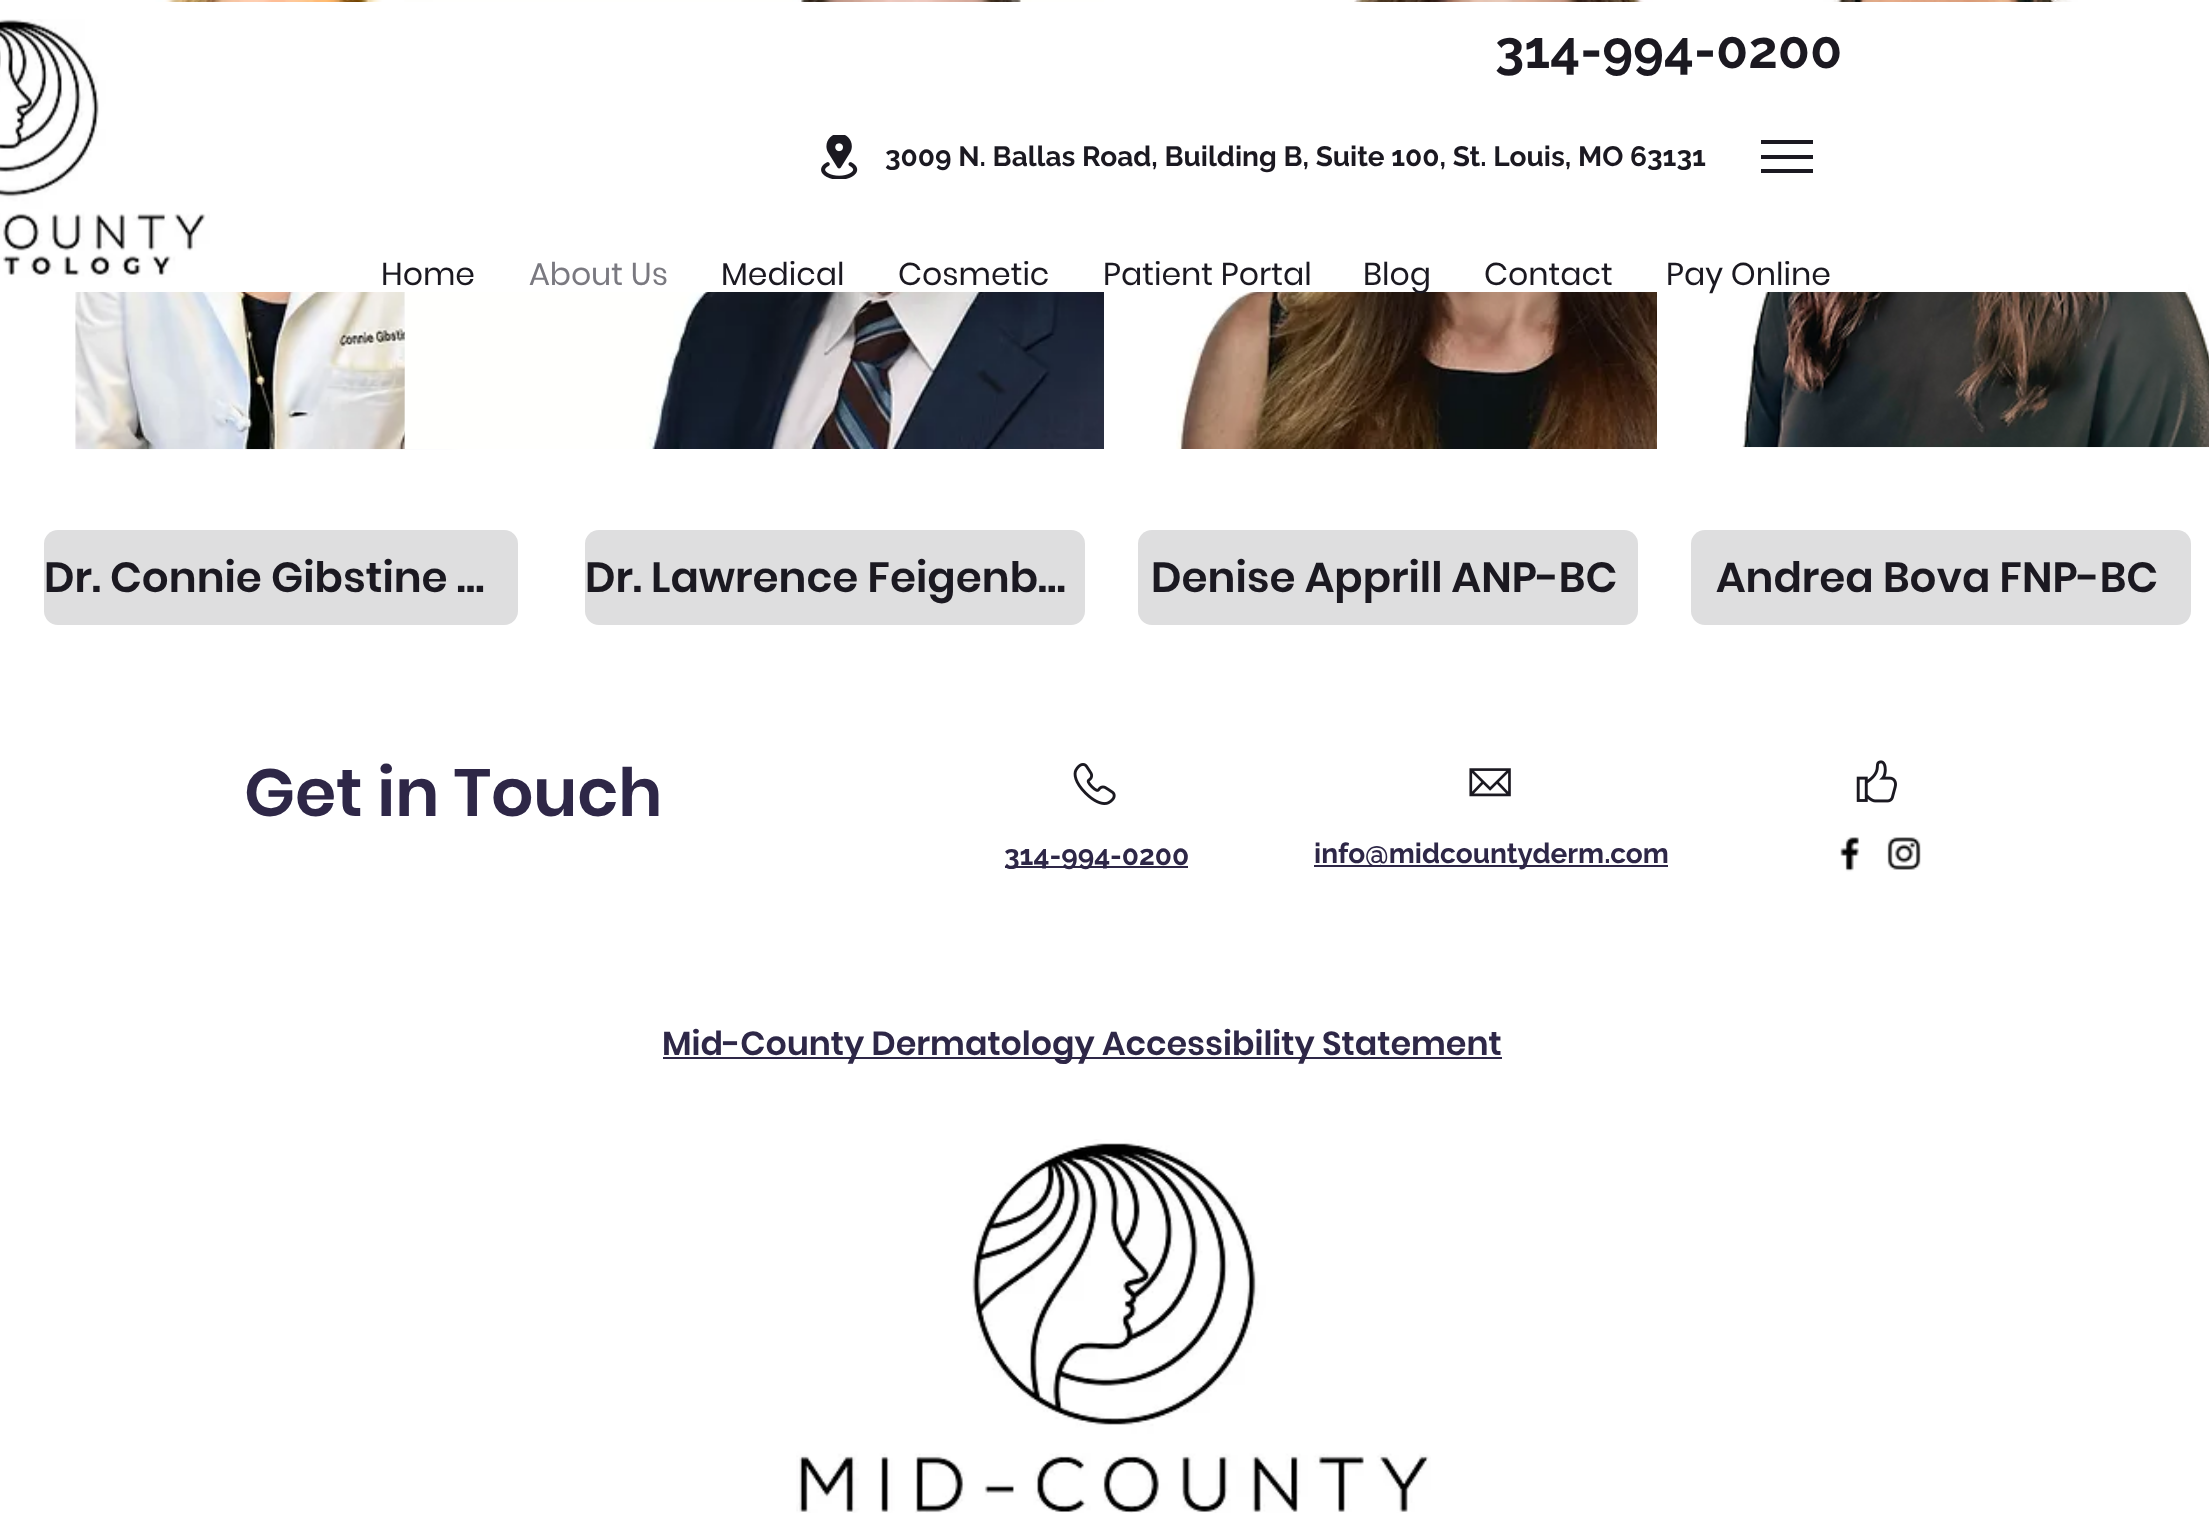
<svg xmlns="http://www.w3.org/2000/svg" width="2209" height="1513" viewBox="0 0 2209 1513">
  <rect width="100%" height="100%" fill="#fff"/>
  <image x="75" y="0" width="397" height="450" href="img/4.png"/>
  <image x="404" y="0" width="700" height="449" href="img/3.png"/>
  <image x="1176" y="0" width="560" height="449" href="img/5.png"/>
  <image x="1740" y="0" width="469" height="448" href="img/6.png"/>
  <path d="M75 2h2113v290H75z" fill="#fff"/>
  <image x="0" y="19" width="210" height="259" href="img/1.png"/>
  <image x="821" y="135" width="37" height="44" href="img/2.png"/>
  <path d="M1761 169h52v4H1761z" fill="#1b1921"/>
  <path d="M1761 140h52v4H1761z" fill="#1b1921"/>
  <path d="M1761 155h52v4H1761z" fill="#1b1921"/>
  <rect x="44" y="530" width="474" height="95" rx="14" fill="#dededf"/>
  <rect x="585" y="530" width="500" height="95" rx="14" fill="#dededf"/>
  <rect x="1138" y="530" width="500" height="95" rx="14" fill="#dededf"/>
  <path d="M1657 292h79v157H1657z" fill="#fff"/>
  <rect x="1691" y="530" width="500" height="95" rx="14" fill="#dededf"/>
  <image x="1856" y="760" width="41" height="43" href="img/7.png"/>
  <image x="1840" y="837" width="19" height="35" href="img/8.png"/>
  <image x="1887" y="837" width="34" height="33" href="img/9.png"/>
  <image x="1073" y="763" width="43" height="42" href="img/10.png"/>
  <path d="M1005 866h183v2H1005z" fill="#2e2747"/>
  <image x="1469" y="768" width="42" height="29" href="img/11.png"/>
  <path d="M1314 865h354v2H1314z" fill="#2e2747"/>
  <path d="M663 1057h839v2H663z" fill="#2e2747"/>
  <image x="796" y="1139" width="635" height="374" href="img/12.png"/>
  <text x="1495" y="68" font-family="Raleway" font-size="52.5" font-weight="bold" fill="#1b1921">314-994-0200</text>
  <text x="885" y="166" font-family="Raleway" font-size="28" font-weight="bold" fill="#1b1921">3009 N. Ballas Road, Building B, Suite 100, St. Louis, MO 63131</text>
  <text x="381" y="285" font-family="Poppins" font-size="31.5" fill="#1b1921">Home</text>
  <text x="529" y="285" font-family="Poppins" font-size="31.5" fill="#7a7980">About Us</text>
  <g font-family="Poppins" font-size="31.5" fill="#1b1921">
    <text x="721" y="285">Medical</text>
    <text x="898" y="285">Cosmetic</text>
    <text x="1103" y="285">Patient Portal</text>
    <text x="1363" y="285">Blog</text>
    <text x="1484" y="285">Contact</text>
    <text x="1666" y="285">Pay Online</text>
  </g>
  <g font-family="Poppins" font-size="42" font-weight="600" fill="#1b1921">
    <text x="44" y="592">Dr. Connie Gibstine …</text>
    <text x="585" y="592">Dr. Lawrence Feigenb…</text>
    <text x="1151" y="592">Denise Apprill ANP-BC</text>
    <text x="1716" y="592">Andrea Bova FNP-BC</text>
  </g>
  <text x="244" y="816" font-family="Poppins" font-size="66.5" font-weight="600" fill="#2e2747">Get in Touch</text>
  <g font-family="Raleway" font-size="28" font-weight="bold" fill="#2e2747">
    <text x="1004" y="865">314-994-0200</text>
    <text x="1314" y="863">info@midcountyderm.com</text>
  </g>
  <text x="662" y="1055" font-family="Poppins" font-size="33.25" font-weight="600" fill="#2e2747">Mid-County Dermatology Accessibility Statement</text>
</svg>
